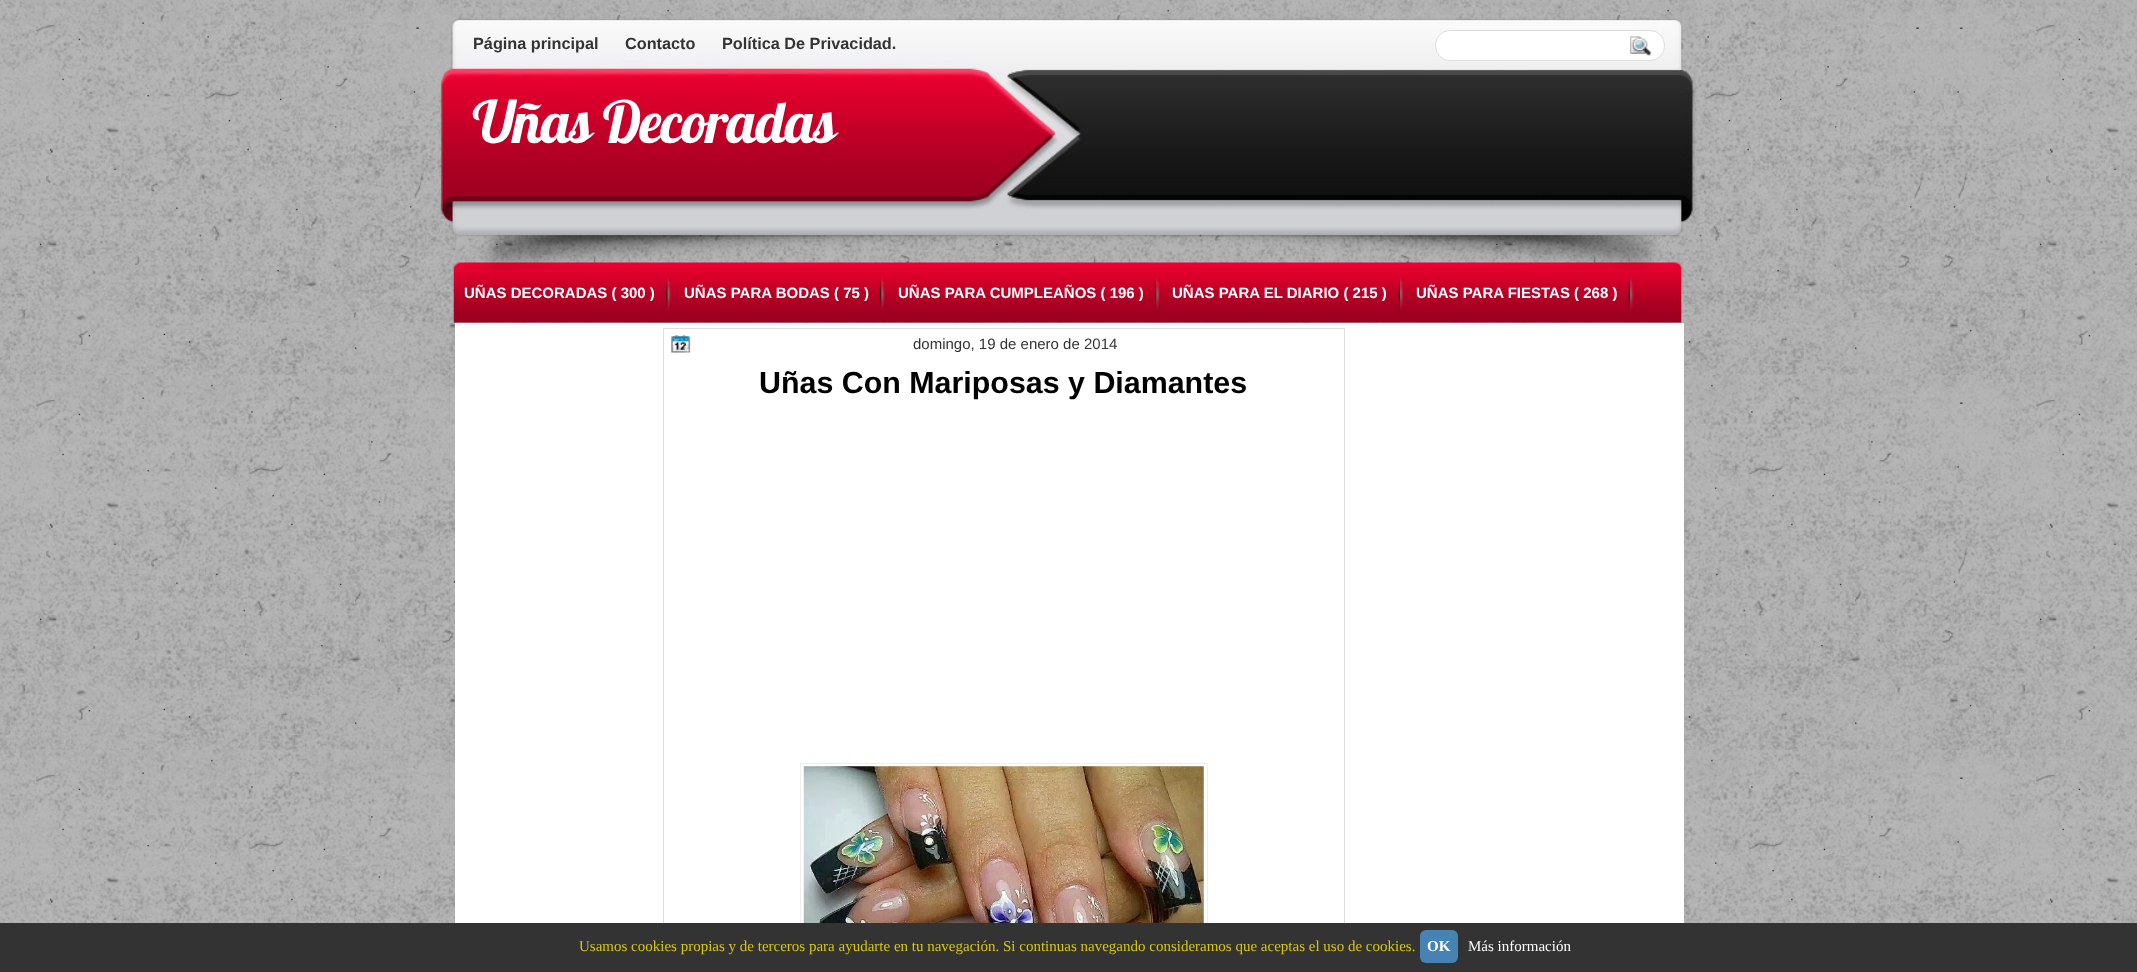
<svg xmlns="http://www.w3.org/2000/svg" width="2137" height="972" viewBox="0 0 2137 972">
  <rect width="100%" height="100%" fill="#fff"/>
  <image x="0" y="0" width="2137" height="923" href="img/1.png"/>
  <image x="193" y="0" width="1751" height="165" href="img/2.png"/>
  <image x="193" y="165" width="1751" height="158" href="img/3.png"/>
  <rect x="1435.5" y="30.5" width="229" height="30" rx="14.5" fill="#fff" stroke="#ddd"/>
  <image x="1630" y="36" width="22" height="20" href="img/4.png"/>
  <image x="666" y="277" width="6" height="33" href="img/5.png"/>
  <image x="879" y="277" width="6" height="33" href="img/6.png"/>
  <image x="1154" y="277" width="6" height="33" href="img/6.png"/>
  <image x="1398" y="277" width="6" height="33" href="img/7.png"/>
  <image x="1628" y="277" width="6" height="33" href="img/8.png"/>
  <path d="M455 323h1229v600H455z" fill="#fff"/>
  <path d="M663.5 328.5h681v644H663.5z" fill="none" stroke="#ddd"/>
  <image x="671" y="335" width="20" height="18" href="img/9.png"/>
  <path d="M800.5 763.5h407v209H800.5z" fill="none" stroke="#eee"/>
  <image x="803" y="766" width="401" height="157" href="img/10.png"/>
  <path d="M0 923h2137v49H0z" fill="#333"/>
  <rect x="1420" y="930" width="38" height="33" rx="6" fill="#4682b4"/>
  <g font-family="Liberation Sans" font-size="16.25" font-weight="bold" fill="#333">
    <text x="473" y="49">Página principal</text>
    <text x="625" y="49">Contacto</text>
    <text x="722" y="49">Política De Privacidad.</text>
  </g>
  <text x="473" y="143" font-family="Lobster" font-size="58" letter-spacing="-1.25" fill="#fff">Uñas Decoradas</text>
  <g font-family="Liberation Sans" font-size="15" font-weight="bold" fill="#fff">
    <text x="464" y="298">UÑAS DECORADAS ( 300 )</text>
    <text x="684" y="298">UÑAS PARA BODAS ( 75 )</text>
    <text x="898" y="298">UÑAS PARA CUMPLEAÑOS ( 196 )</text>
    <text x="1172" y="298">UÑAS PARA EL DIARIO ( 215 )</text>
    <text x="1416" y="298">UÑAS PARA FIESTAS ( 268 )</text>
  </g>
  <text x="913" y="349" font-family="Liberation Sans" font-size="15" fill="#333">domingo, 19 de enero de 2014</text>
  <text x="759" y="393" font-family="Liberation Sans" font-size="30.4" font-weight="bold" fill="#000">Uñas Con Mariposas y Diamantes</text>
  <text x="579" y="951" font-family="Liberation Serif" font-size="15" fill="#d7c712">Usamos cookies propias y de terceros para ayudarte en tu navegación. Si continuas navegando consideramos que aceptas el uso de cookies.</text>
  <text x="1427" y="951" font-family="Liberation Serif" font-size="15" font-weight="bold" fill="#fff">OK</text>
  <text x="1468" y="951" font-family="Liberation Serif" font-size="15" fill="#fff">Más información</text>
</svg>
